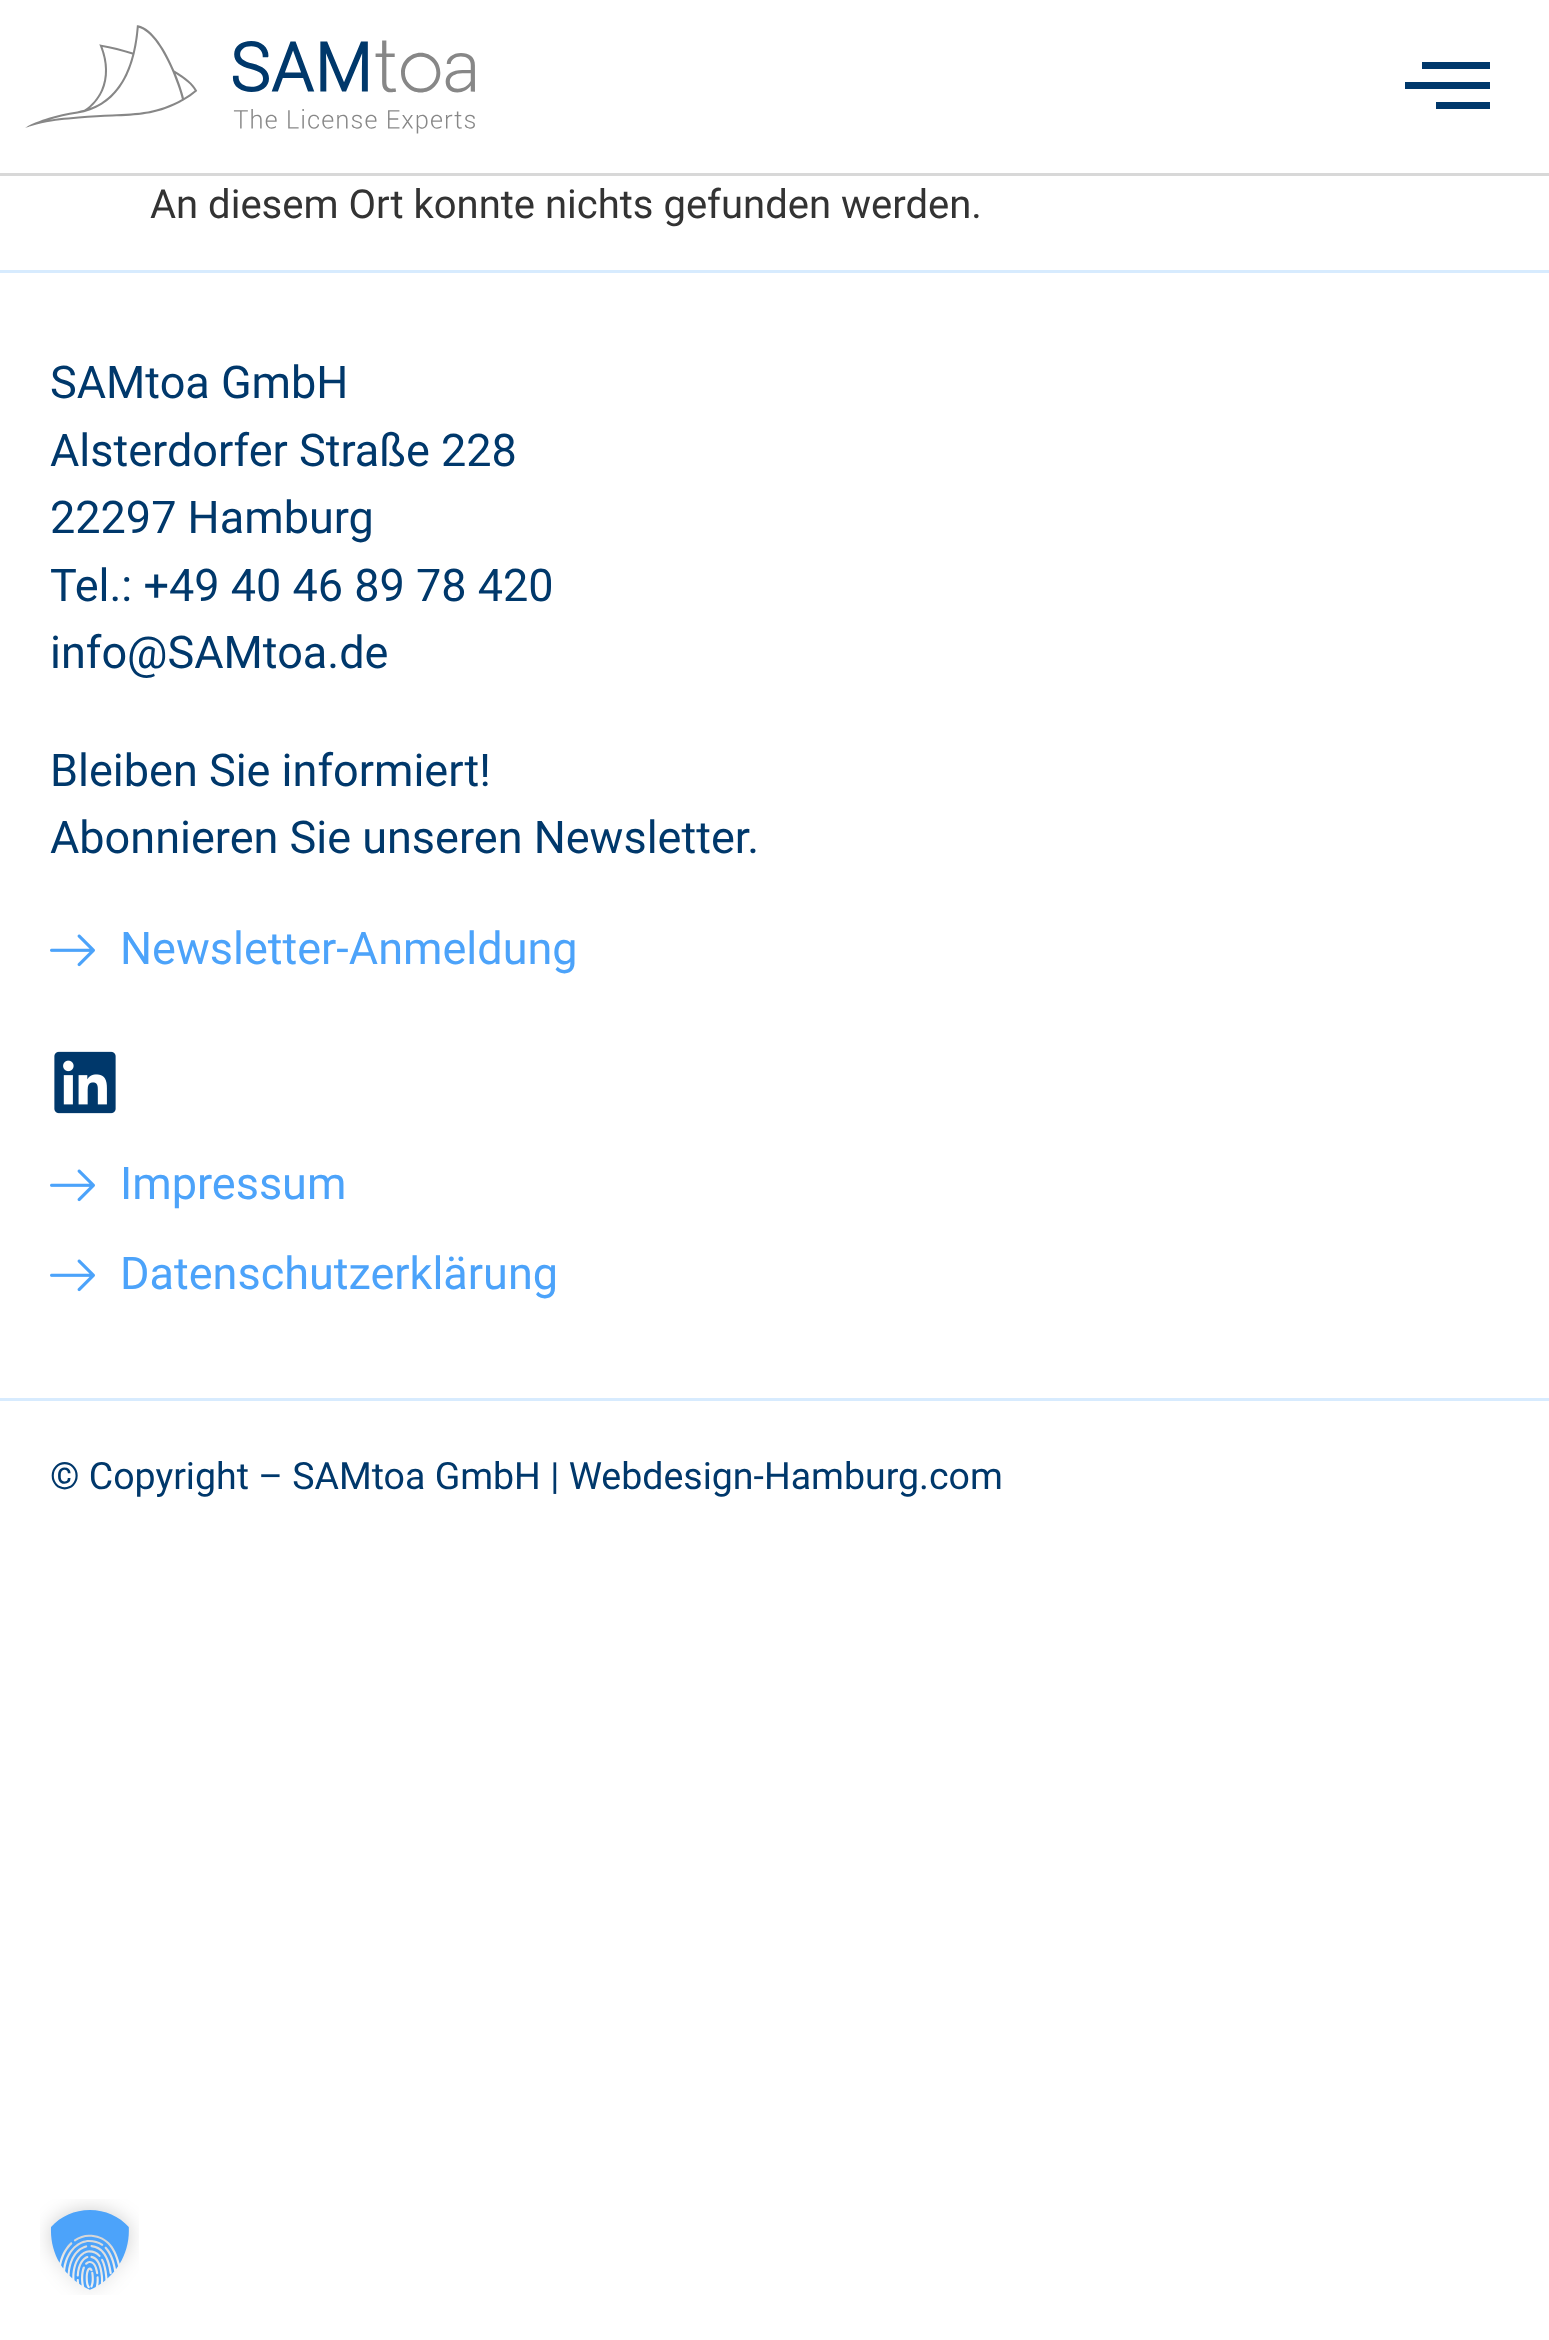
<svg xmlns="http://www.w3.org/2000/svg" width="1549" height="2340" viewBox="0 0 1549 2340">
  <rect width="100%" height="100%" fill="#fff"/>
  <path d="M0 173h1549v3H0z" fill="#d8d8d8"/>
  <image x="25" y="25" width="450" height="109" href="img/1.png"/>
  <path d="M1405 89H1490V82H1405ZM1436 109H1490V102H1436ZM1422 62V69H1490V62Z" fill="#00386b"/>
  <path d="M0 270h1549v3H0z" fill="#d7ebfe"/>
  <image x="50" y="934" width="45" height="33" href="img/2.png"/>
  <image x="54" y="1051" width="62" height="63" href="img/3.png"/>
  <image x="50" y="1169" width="45" height="33" href="img/2.png"/>
  <image x="50" y="1259" width="45" height="33" href="img/2.png"/>
  <path d="M0 1398h1549v3H0z" fill="#d7ebfe"/>
  <image x="40" y="2199" width="99" height="96" href="img/4.png"/>
  <text x="150" y="218" font-family="Roboto" font-size="40" fill="#333">An diesem Ort konnte nichts gefunden werden.</text>
  <g font-family="Roboto" font-size="45" fill="#00386b">
    <text x="50" y="398">SAMtoa GmbH</text>
    <text x="50" y="466">Alsterdorfer Straße 228</text>
    <text x="50" y="533">22297 Hamburg</text>
    <text x="50" y="601">Tel.: +49 40 46 89 78 420</text>
    <text x="50" y="668">info@SAMtoa.de</text>
    <text x="50" y="786">Bleiben Sie informiert!</text>
    <text x="50" y="853">Abonnieren Sie unseren Newsletter.</text>
  </g>
  <g font-family="Roboto" font-size="45" fill="#4ca3fa">
    <text x="120" y="964">Newsletter-Anmeldung</text>
    <text x="120" y="1199">Impressum</text>
    <text x="120" y="1289">Datenschutzerklärung</text>
  </g>
  <text x="50" y="1489" font-family="Roboto" font-size="37.5" fill="#00386b">© Copyright – SAMtoa GmbH | Webdesign-Hamburg.com</text>
</svg>
